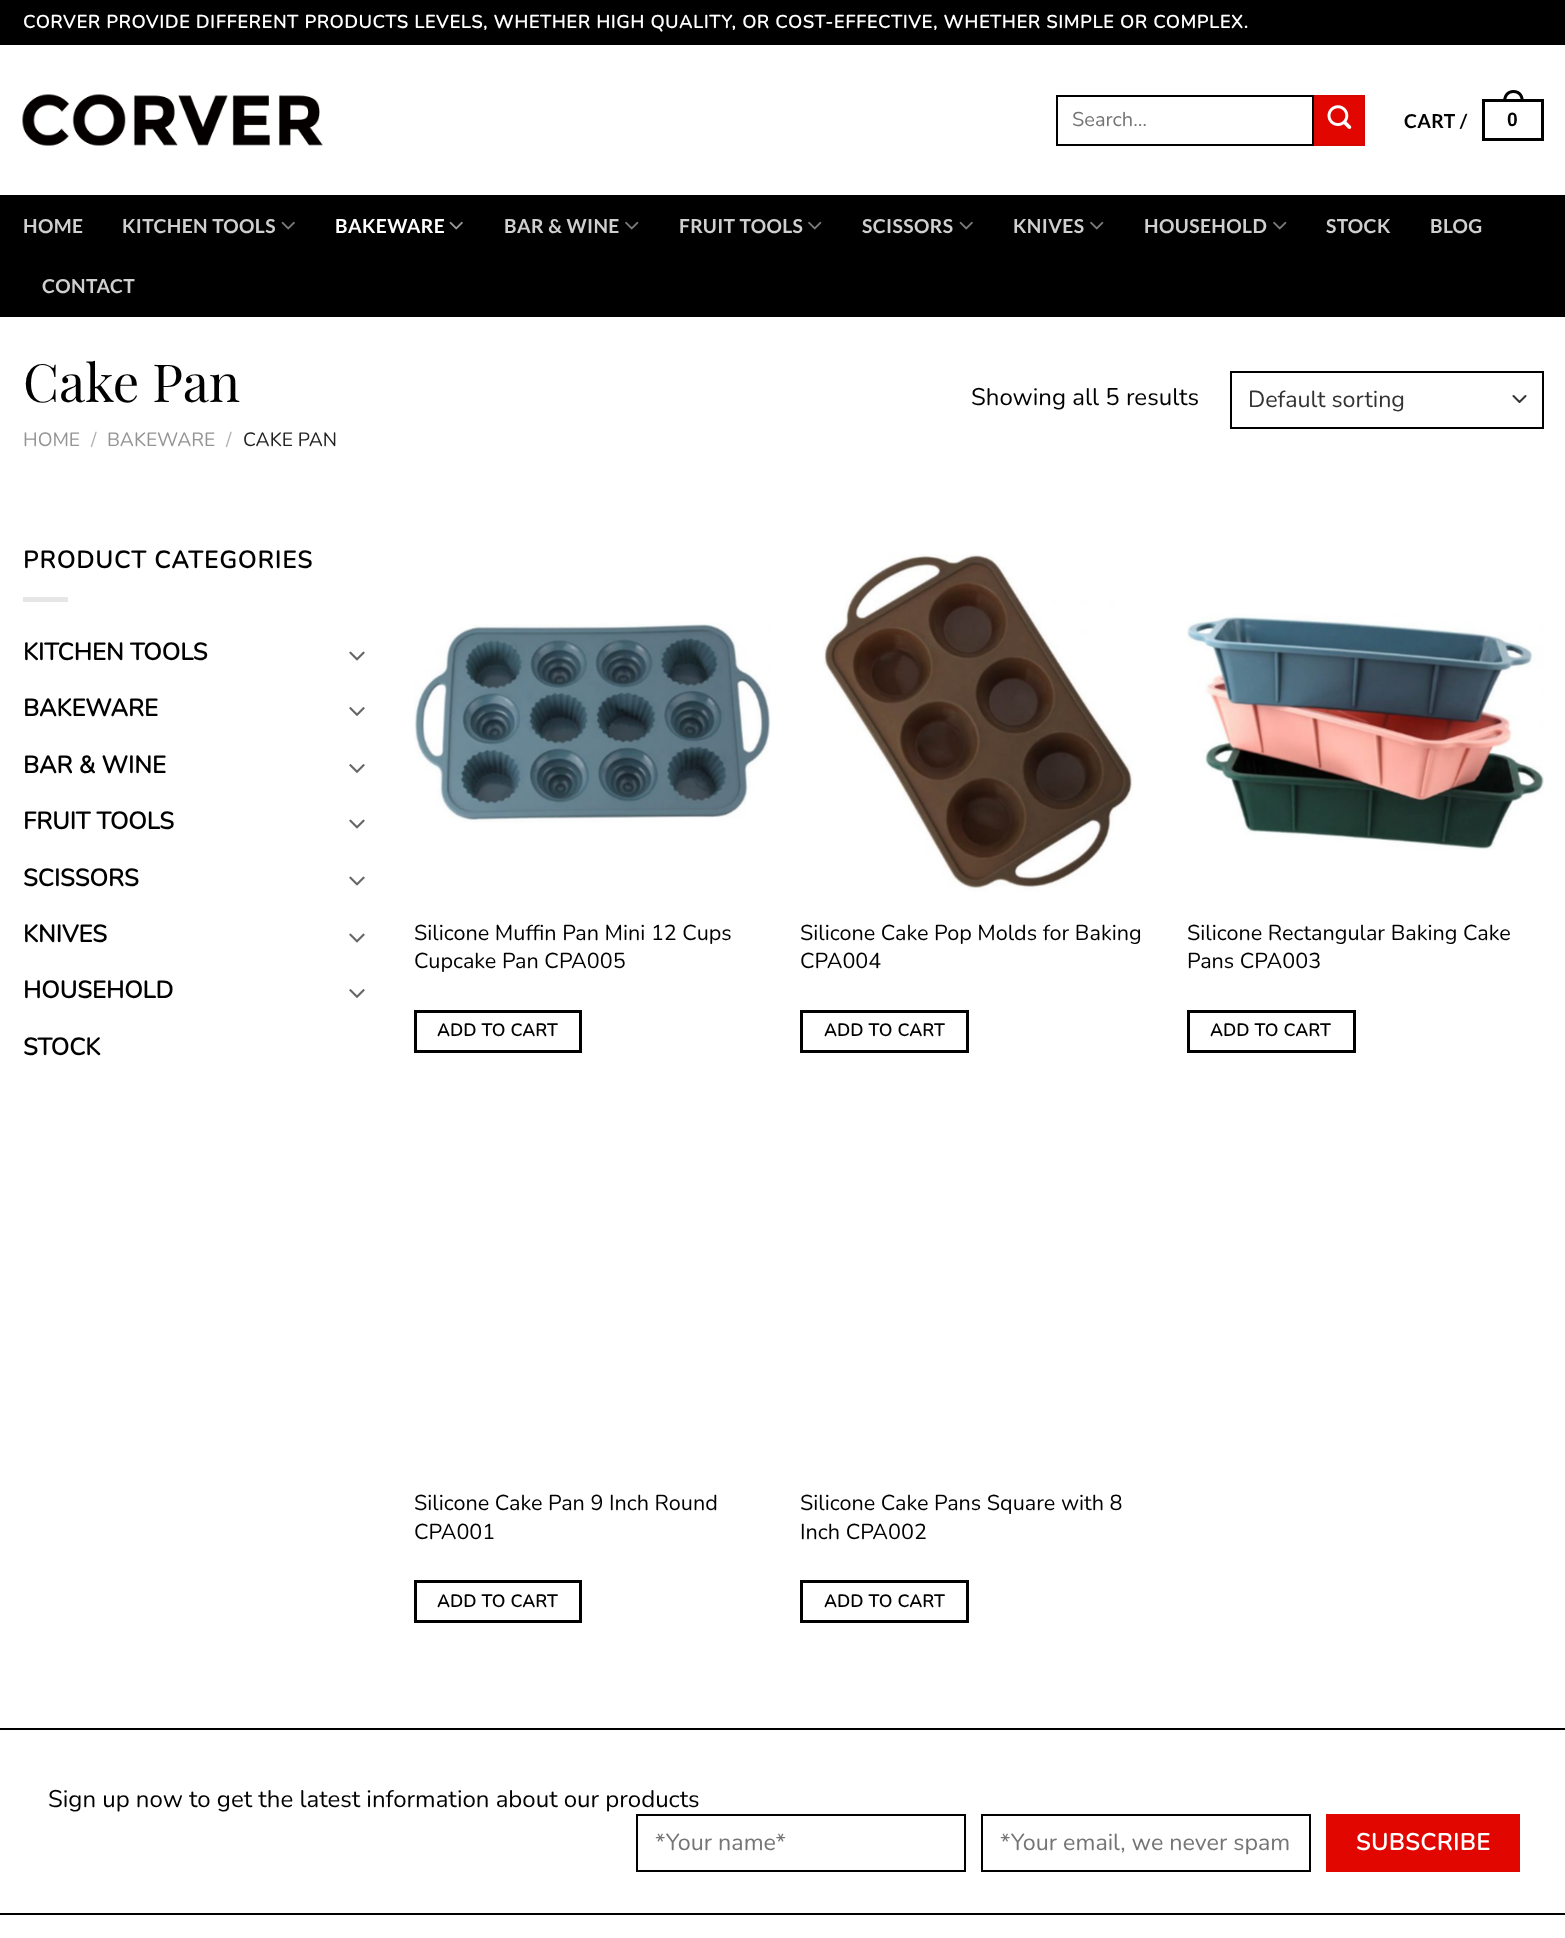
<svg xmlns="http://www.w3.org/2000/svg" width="1565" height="1938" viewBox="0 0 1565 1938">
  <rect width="100%" height="100%" fill="#fff"/>
  <path d="M0 0h1565v45H0z" fill="#000"/>
  <image x="22" y="94" width="301" height="52" href="img/1.png"/>
  <path d="M1057 96h256v49H1057z" fill="none" stroke="#000" stroke-width="2"/>
  <path d="M1315 96h49v49H1315z" fill="#e10600" stroke="#d60600" stroke-width="2"/>
  <image x="1327" y="105" width="25" height="24" href="img/2.png"/>
  <path d="M1483.5 100.5h59v39H1483.5z" fill="none" stroke="#000" stroke-width="3"/>
  <path d="M1513.5 90C1520.5 90 1524 95.5 1524 102H1503C1503 95.5 1506.5 90 1513.5 90ZM1513.5 93C1519 93 1521 97.5 1521 102H1506C1506 97.5 1508 93 1513.5 93Z" fill="#000" fill-rule="evenodd"/>
  <path d="M0 195h1565v122H0z" fill="#000"/>
  <image x="281" y="221" width="14" height="9" href="img/3.png"/>
  <image x="449" y="221" width="14" height="9" href="img/4.png"/>
  <image x="625" y="221" width="14" height="9" href="img/5.png"/>
  <image x="808" y="221" width="14" height="9" href="img/5.png"/>
  <image x="959" y="221" width="14" height="9" href="img/3.png"/>
  <image x="1090" y="221" width="14" height="9" href="img/5.png"/>
  <image x="1273" y="221" width="14" height="9" href="img/5.png"/>
  <path d="M1513.5 396L1519.5 402L1525.5 396" fill="none" stroke="#333" stroke-width="2" stroke-linecap="round" stroke-linejoin="round"/>
  <path d="M1231 372h312v56H1231z" fill="none" stroke="#000" stroke-width="2"/>
  <path d="M23 597h45v5H23z" fill="#e6e6e6"/>
  <image x="349" y="651" width="16" height="10" href="img/6.png"/>
  <image x="349" y="707" width="16" height="9" href="img/7.png"/>
  <image x="349" y="764" width="16" height="9" href="img/7.png"/>
  <image x="349" y="819" width="16" height="10" href="img/6.png"/>
  <image x="349" y="876" width="16" height="10" href="img/6.png"/>
  <image x="349" y="933" width="16" height="10" href="img/6.png"/>
  <image x="349" y="989" width="16" height="9" href="img/7.png"/>
  <image x="414" y="623" width="357" height="200" href="img/8.png"/>
  <path d="M415.5 1011.5h165v40H415.5z" fill="none" stroke="#000" stroke-width="3"/>
  <image x="823" y="554" width="310" height="340" href="img/9.png"/>
  <path d="M801.5 1011.5h166v40H801.5z" fill="none" stroke="#000" stroke-width="3"/>
  <image x="1187" y="614" width="357" height="236" href="img/10.png"/>
  <path d="M1188.5 1011.5h166v40H1188.5z" fill="none" stroke="#000" stroke-width="3"/>
  <path d="M415.5 1581.5h165v40H415.5z" fill="none" stroke="#000" stroke-width="3"/>
  <path d="M801.5 1581.5h166v40H801.5z" fill="none" stroke="#000" stroke-width="3"/>
  <path d="M0 1728h1565v2H0z" fill="#000"/>
  <path d="M0 1913h1565v2H0z" fill="#000"/>
  <path d="M637 1815h328v56H637z" fill="none" stroke="#000" stroke-width="2"/>
  <path d="M982 1815h328v56H982z" fill="none" stroke="#000" stroke-width="2"/>
  <path d="M1326 1814h194v58H1326z" fill="#e10600"/>
  <text x="23" y="28" font-family="Nunito" font-size="18" font-weight="bold" letter-spacing="0.9" fill="#fff">CORVER PROVIDE DIFFERENT PRODUCTS LEVELS, WHETHER HIGH QUALITY, OR COST-EFFECTIVE, WHETHER SIMPLE OR COMPLEX.</text>
  <text x="1072" y="126" font-family="Nunito" font-size="20" font-weight="200" fill="#757575">Search…</text>
  <text x="1404" y="128" font-family="Lato" font-size="19.25" font-weight="bold" letter-spacing="0.4" fill="#000">CART /</text>
  <text x="1507" y="126" font-family="Liberation Sans" font-size="19.25" font-weight="bold" letter-spacing="0.4" fill="#000">0</text>
  <g font-family="Lato" font-size="19.25" font-weight="bold" letter-spacing="0.4" fill="#cfcfcf">
    <text x="23" y="233">HOME</text>
    <text x="122" y="233">KITCHEN TOOLS</text>
  </g>
  <text x="335" y="233" font-family="Lato" font-size="19.25" font-weight="bold" letter-spacing="0.4" fill="#fff">BAKEWARE</text>
  <g font-family="Lato" font-size="19.25" font-weight="bold" letter-spacing="0.4" fill="#cfcfcf">
    <text x="504" y="233">BAR &amp; WINE</text>
    <text x="679" y="233">FRUIT TOOLS</text>
    <text x="862" y="233">SCISSORS</text>
    <text x="1013" y="233">KNIVES</text>
    <text x="1144" y="233">HOUSEHOLD</text>
    <text x="1326" y="233">STOCK</text>
    <text x="1430" y="233">BLOG</text>
    <text x="42" y="293">CONTACT</text>
  </g>
  <text x="23" y="402" font-family="Playfair Display" font-size="52.5" fill="#000">Cake Pan</text>
  <text x="23" y="446" font-family="Nunito" font-size="19.25" font-weight="200" fill="#949494">HOME</text>
  <text x="91" y="446" font-family="Nunito" font-size="19.25" font-weight="200" fill="#b2b2b2">/</text>
  <text x="107" y="446" font-family="Nunito" font-size="19.25" font-weight="200" fill="#949494">BAKEWARE</text>
  <text x="226" y="446" font-family="Nunito" font-size="19.25" font-weight="200" fill="#b2b2b2">/</text>
  <text x="243" y="446" font-family="Nunito" font-size="19.25" font-weight="200" fill="#222">CAKE PAN</text>
  <text x="971" y="405" font-family="Nunito" font-size="24" font-weight="200" fill="#000">Showing all 5 results</text>
  <text x="1248" y="407" font-family="Nunito" font-size="23.25" font-weight="200" fill="#333">Default sorting</text>
  <text x="23" y="568" font-family="Nunito" font-size="24" font-weight="bold" letter-spacing="1.25" fill="#000">PRODUCT CATEGORIES</text>
  <g font-family="Nunito" font-size="24" font-weight="bold" fill="#000">
    <text x="23" y="660">KITCHEN TOOLS</text>
    <text x="23" y="716">BAKEWARE</text>
    <text x="23" y="773">BAR &amp; WINE</text>
    <text x="23" y="829">FRUIT TOOLS</text>
    <text x="23" y="886">SCISSORS</text>
    <text x="23" y="942">KNIVES</text>
    <text x="23" y="998">HOUSEHOLD</text>
    <text x="23" y="1055">STOCK</text>
  </g>
  <g font-family="Nunito" font-size="21.6" font-weight="200" fill="#000">
    <text x="414" y="940">Silicone Muffin Pan Mini 12 Cups</text>
    <text x="414" y="968">Cupcake Pan CPA005</text>
  </g>
  <text x="437" y="1036" font-family="Nunito" font-size="17.25" font-weight="bold" letter-spacing="0.5" fill="#000">ADD TO CART</text>
  <g font-family="Nunito" font-size="21.6" font-weight="200" fill="#000">
    <text x="800" y="940">Silicone Cake Pop Molds for Baking</text>
    <text x="800" y="968">CPA004</text>
  </g>
  <text x="824" y="1036" font-family="Nunito" font-size="17.25" font-weight="bold" letter-spacing="0.5" fill="#000">ADD TO CART</text>
  <g font-family="Nunito" font-size="21.6" font-weight="200" fill="#000">
    <text x="1187" y="940">Silicone Rectangular Baking Cake</text>
    <text x="1187" y="968">Pans CPA003</text>
  </g>
  <text x="1210" y="1036" font-family="Nunito" font-size="17.25" font-weight="bold" letter-spacing="0.5" fill="#000">ADD TO CART</text>
  <g font-family="Nunito" font-size="21.6" font-weight="200" fill="#000">
    <text x="414" y="1510">Silicone Cake Pan 9 Inch Round</text>
    <text x="414" y="1539">CPA001</text>
  </g>
  <text x="437" y="1607" font-family="Nunito" font-size="17.25" font-weight="bold" letter-spacing="0.5" fill="#000">ADD TO CART</text>
  <g font-family="Nunito" font-size="21.6" font-weight="200" fill="#000">
    <text x="800" y="1510">Silicone Cake Pans Square with 8</text>
    <text x="800" y="1539">Inch CPA002</text>
  </g>
  <text x="824" y="1607" font-family="Nunito" font-size="17.25" font-weight="bold" letter-spacing="0.5" fill="#000">ADD TO CART</text>
  <text x="48" y="1807" font-family="Nunito" font-size="24" font-weight="200" fill="#000">Sign up now to get the latest information about our products</text>
  <g font-family="Nunito" font-size="23.25" font-weight="200" fill="#757575">
    <text x="655" y="1850">*Your name*</text>
    <text x="1000" y="1850">*Your email, we never spam</text>
  </g>
  <text x="1356" y="1850" font-family="Nunito" font-size="23.25" font-weight="bold" letter-spacing="0.75" fill="#fff">SUBSCRIBE</text>
</svg>
